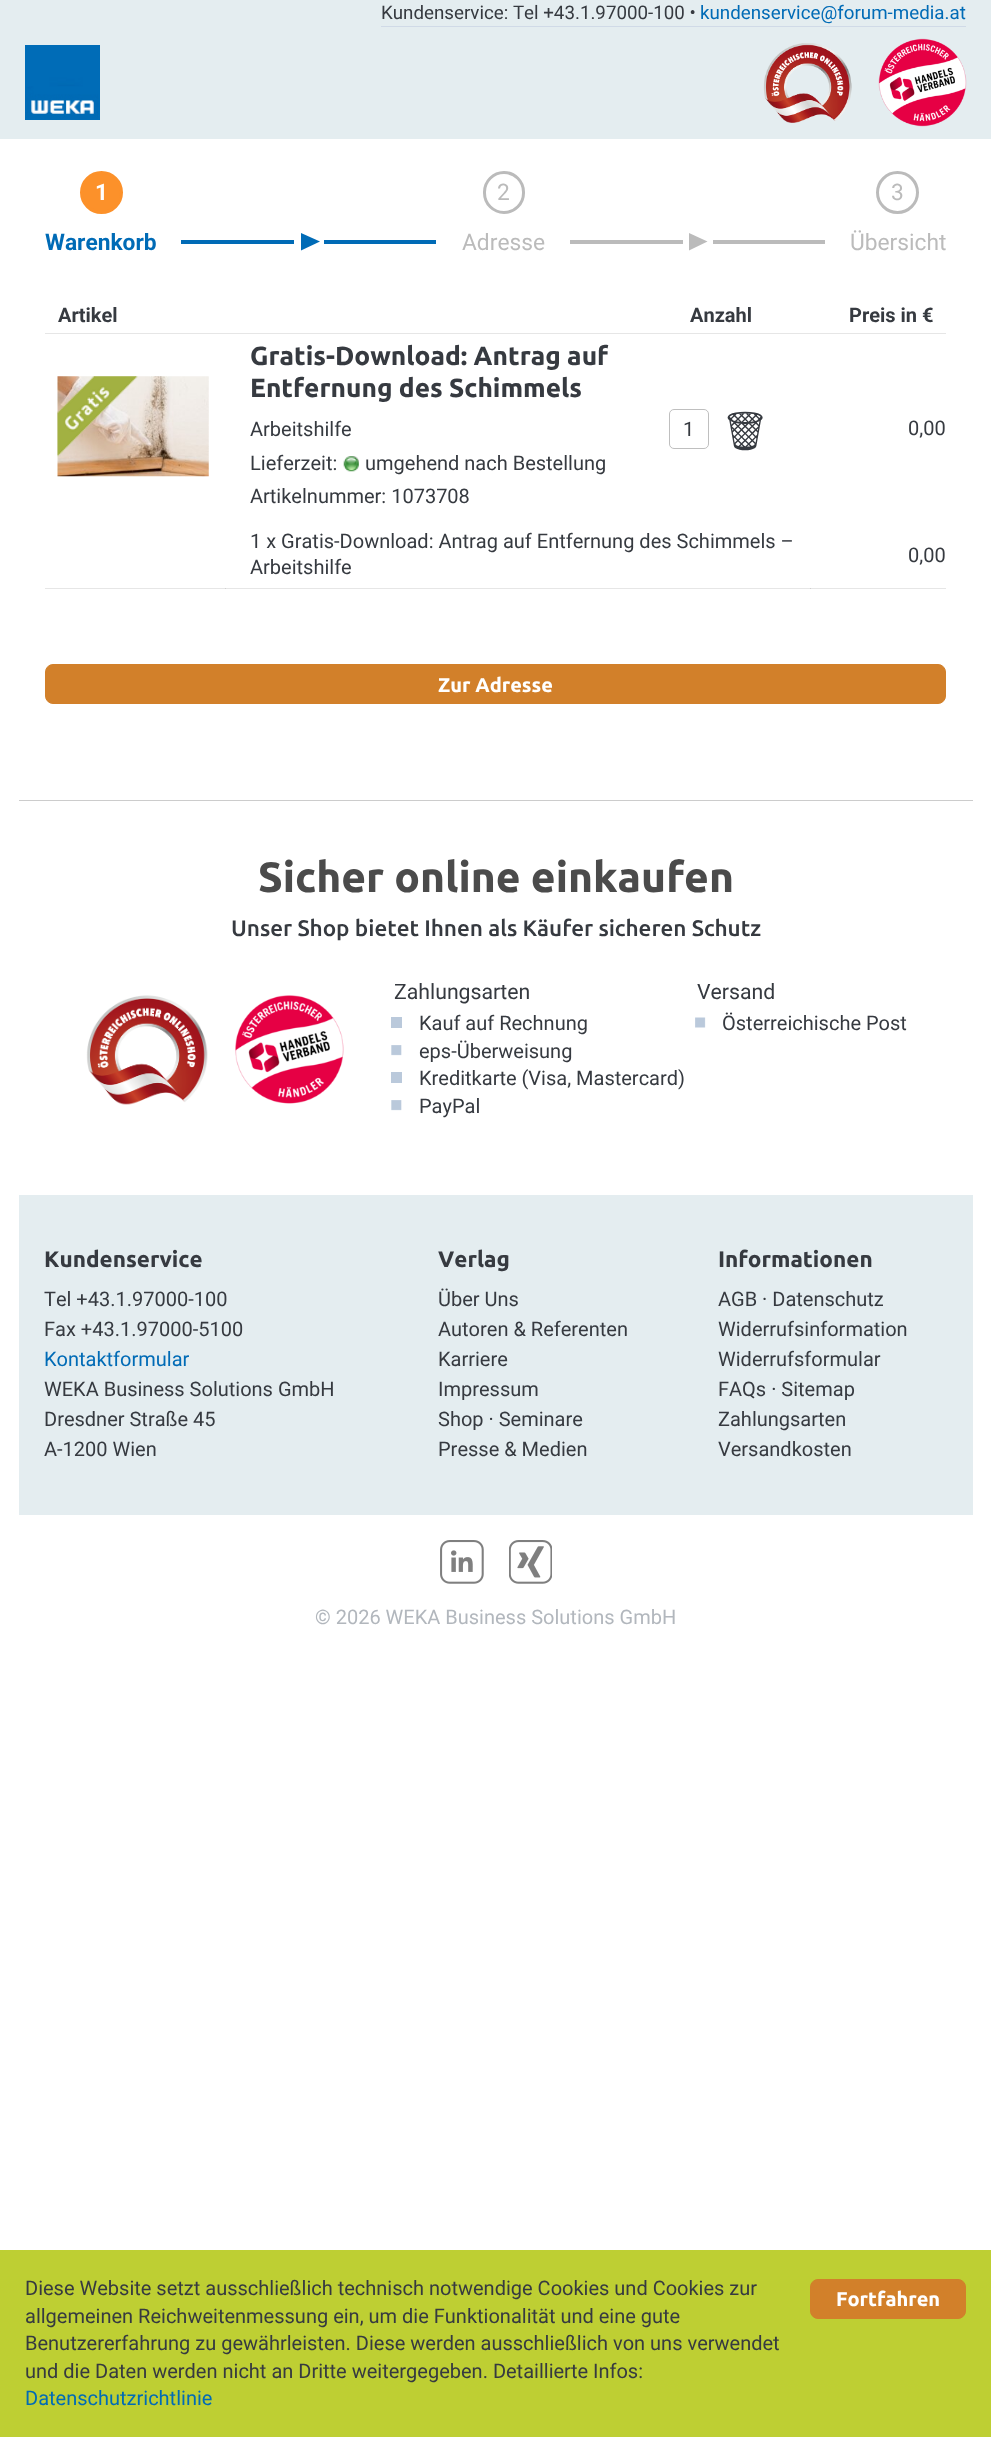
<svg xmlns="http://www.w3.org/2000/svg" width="991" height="2437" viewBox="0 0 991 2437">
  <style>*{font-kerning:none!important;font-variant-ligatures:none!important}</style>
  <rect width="100%" height="100%" fill="#fff"/>
  <path d="M45 588h901v1H45z" fill="#e6e6e6"/>
  <path d="M225 588h1v1H225z" fill="#cfcfcf"/>
  <path d="M0 0h991v139H0z" fill="#e4edf0"/>
  <path d="M381 26h585v1H381z" fill="#d0dae7"/>
  <image x="25" y="45" width="75" height="75" href="img/1.png"/>
  <image x="763" y="43" width="89" height="80" href="img/2.png"/>
  <image x="878" y="38" width="89" height="89" href="img/3.png"/>
  <circle cx="101.5" cy="192.5" r="20" fill="#fc912a" stroke="#fc912a" stroke-width="3"/>
  <path d="M181 240h255v4H181z" fill="#006bb6"/>
  <path d="M294 240h30v4H294z" fill="#fff"/>
  <path d="M301 250.5V233L320 241.5Z" fill="#006bb6"/>
  <rect x="484.5" y="172.5" width="39" height="40" rx="19.5" fill="none" stroke="#bbb" stroke-width="3"/>
  <path d="M570 240h255v4H570z" fill="#bbb"/>
  <path d="M683 240h30v4H683z" fill="#fff"/>
  <path d="M689 250.5V233L707.5 241.5Z" fill="#bbb"/>
  <circle cx="897.5" cy="192.5" r="20" fill="none" stroke="#bbb" stroke-width="3"/>
  <path d="M45 333h901v1H45z" fill="#e6e6e6"/>
  <image x="57" y="376" width="152" height="101" href="img/4.png"/>
  <image x="57" y="376" width="81" height="81" href="img/5.png"/>
  <image x="343" y="456" width="16" height="16" href="img/6.png"/>
  <rect x="669.5" y="409.5" width="39" height="39" rx="4.5" fill="none" stroke="#bfbfbf"/>
  <path d="M810 588h1v1H810z" fill="#cfcfcf"/>
  <rect x="45.5" y="664.5" width="900" height="39" rx="7.5" fill="#d2802a" stroke="#d2802a"/>
  <path d="M19 800h954v1H19z" fill="#ccc"/>
  <image x="86" y="995" width="122" height="110" href="img/7.png"/>
  <image x="235" y="995" width="109" height="109" href="img/8.png"/>
  <path d="M391 1017h11v11H391z" fill="#bac9db"/>
  <image x="391" y="1045" width="11" height="11" href="img/9.png"/>
  <path d="M391 1072h11v11H391z" fill="#bac9db"/>
  <image x="391" y="1100" width="11" height="11" href="img/9.png"/>
  <image x="695" y="1017" width="11" height="11" href="img/10.png"/>
  <path d="M19 1195h954v320H19z" fill="#e4edf0"/>
  <image x="440" y="1540" width="44" height="44" href="img/11.png"/>
  <image x="509" y="1540" width="43" height="44" href="img/12.png"/>
  <path d="M0 2250h991v187H0z" fill="#becf33"/>
  <rect x="810.5" y="2279.5" width="155" height="39" rx="7.5" fill="#d2802a" stroke="#d2802a"/>
  <text x="381" y="19" font-family="Roboto" font-size="18.75" fill="#363a40">Kundenservice: Tel +43.1.97000-100 •</text>
  <text x="700" y="19" font-family="Roboto" font-size="18.75" fill="#006bb6">kundenservice@forum-media.at</text>
  <text x="95" y="200" font-family="Roboto" font-size="22.75" font-weight="bold" fill="#fff">1</text>
  <text x="45" y="250" font-family="Roboto" font-size="22.75" font-weight="bold" fill="#006bb6">Warenkorb</text>
  <g font-family="Roboto" font-size="22.75" fill="#bbb">
    <text x="497" y="200">2</text>
    <text x="462" y="250">Adresse</text>
    <text x="891" y="200">3</text>
    <text x="850" y="250">Übersicht</text>
  </g>
  <g font-family="Roboto" font-size="20" font-weight="bold" fill="#363a40">
    <text x="58" y="322">Artikel</text>
    <text x="690" y="322">Anzahl</text>
    <text x="849" y="322">Preis in €</text>
  </g>
  <g font-family="Ubuntu" font-size="26.25" font-weight="bold" fill="#363a40">
    <text x="250" y="365">Gratis-Download: Antrag auf</text>
    <text x="250" y="397">Entfernung des Schimmels</text>
  </g>
  <g font-family="Roboto" font-size="20" fill="#363a40">
    <text x="250" y="436">Arbeitshilfe</text>
    <text x="250" y="470">Lieferzeit:</text>
    <text x="365" y="470">umgehend nach Bestellung</text>
    <text x="250" y="503">Artikelnummer: 1073708</text>
    <text x="683" y="436">1</text>
  </g>
  <text x="721" y="444" font-family="Noto Emoji" font-size="38" fill="#363a40">🗑</text>
  <g font-family="Roboto" font-size="20" fill="#363a40">
    <text x="908" y="435">0,00</text>
    <text x="250" y="548">1 x Gratis-Download: Antrag auf Entfernung des Schimmels –</text>
    <text x="250" y="574">Arbeitshilfe</text>
    <text x="908" y="562">0,00</text>
  </g>
  <text x="438" y="692" font-family="Ubuntu" font-size="20" font-weight="bold" fill="#fff">Zur Adresse</text>
  <text x="258" y="892" font-family="Ubuntu" font-size="42.5" font-weight="bold" fill="#4b4b4b">Sicher online einkaufen</text>
  <text x="231" y="936" font-family="Ubuntu" font-size="22.5" font-weight="500" fill="#363a40">Unser Shop bietet Ihnen als Käufer sicheren Schutz</text>
  <text x="394" y="999" font-family="Roboto" font-size="21.25" fill="#363a40">Zahlungsarten</text>
  <g font-family="Roboto" font-size="20" fill="#363a40">
    <text x="419" y="1030">Kauf auf Rechnung</text>
    <text x="419" y="1058">eps-Überweisung</text>
    <text x="419" y="1085">Kreditkarte (Visa, Mastercard)</text>
    <text x="419" y="1113">PayPal</text>
  </g>
  <text x="697" y="999" font-family="Roboto" font-size="21.25" fill="#363a40">Versand</text>
  <text x="722" y="1030" font-family="Roboto" font-size="20" fill="#363a40">Österreichische Post</text>
  <text x="44" y="1267" font-family="Ubuntu" font-size="22.5" font-weight="bold" fill="#363a40">Kundenservice</text>
  <g font-family="Roboto" font-size="20" fill="#363a40">
    <text x="44" y="1306">Tel +43.1.97000-100</text>
    <text x="44" y="1336">Fax +43.1.97000-5100</text>
  </g>
  <text x="44" y="1366" font-family="Roboto" font-size="20" fill="#006bb6">Kontaktformular</text>
  <g font-family="Roboto" font-size="20" fill="#363a40">
    <text x="44" y="1396">WEKA Business Solutions GmbH</text>
    <text x="44" y="1426">Dresdner Straße 45</text>
    <text x="44" y="1456">A-1200 Wien</text>
  </g>
  <text x="438" y="1267" font-family="Ubuntu" font-size="22.5" font-weight="bold" fill="#363a40">Verlag</text>
  <g font-family="Roboto" font-size="20" fill="#363a40">
    <text x="438" y="1306">Über Uns</text>
    <text x="438" y="1336">Autoren &amp; Referenten</text>
    <text x="438" y="1366">Karriere</text>
    <text x="438" y="1396">Impressum</text>
    <text x="438" y="1426">Shop · Seminare</text>
    <text x="438" y="1456">Presse &amp; Medien</text>
  </g>
  <text x="718" y="1267" font-family="Ubuntu" font-size="22.5" font-weight="bold" fill="#363a40">Informationen</text>
  <g font-family="Roboto" font-size="20" fill="#363a40">
    <text x="718" y="1306">AGB · Datenschutz</text>
    <text x="718" y="1336">Widerrufsinformation</text>
    <text x="718" y="1366">Widerrufsformular</text>
    <text x="718" y="1396">FAQs · Sitemap</text>
    <text x="718" y="1426">Zahlungsarten</text>
    <text x="718" y="1456">Versandkosten</text>
  </g>
  <text x="315" y="1624" font-family="Roboto" font-size="20" fill="#b2b7bd">© 2026 WEKA Business Solutions GmbH</text>
  <g font-family="Roboto" font-size="20" fill="#363a40">
    <text x="25" y="2295">Diese Website setzt ausschließlich technisch notwendige Cookies und Cookies zur</text>
    <text x="25" y="2323">allgemeinen Reichweitenmessung ein, um die Funktionalität und eine gute</text>
    <text x="25" y="2350">Benutzererfahrung zu gewährleisten. Diese werden ausschließlich von uns verwendet</text>
    <text x="25" y="2378">und die Daten werden nicht an Dritte weitergegeben. Detaillierte Infos:</text>
  </g>
  <text x="25" y="2405" font-family="Roboto" font-size="20" fill="#006bb6">Datenschutzrichtlinie</text>
  <text x="836" y="2306" font-family="Ubuntu" font-size="20" font-weight="bold" fill="#fff">Fortfahren</text>
</svg>
